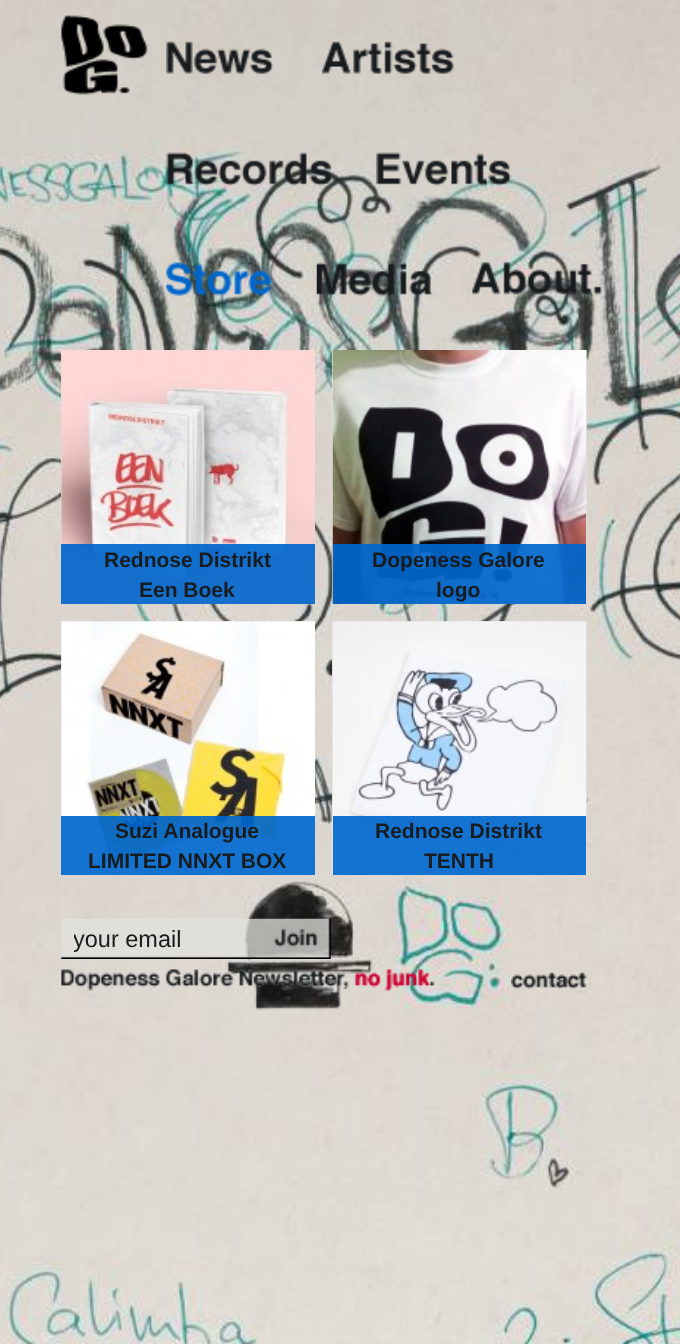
<svg xmlns="http://www.w3.org/2000/svg" width="680" height="1344" viewBox="0 0 680 1344">
  <defs>
    <clipPath id="clip1"><path d="M74 926h192v26H74z"/></clipPath>
  </defs>
  <rect width="100%" height="100%" fill="#fff"/>
  <image x="0" y="0" width="680" height="1344" href="img/1.png"/>
  <image x="61" y="15" width="87" height="80" href="img/2.png"/>
  <image x="166" y="41" width="108" height="33" href="img/3.png"/>
  <image x="322" y="41" width="132" height="33" href="img/4.png"/>
  <image x="166" y="152" width="167" height="34" href="img/5.png"/>
  <image x="376" y="152" width="136" height="34" href="img/6.png"/>
  <image x="166" y="262" width="106" height="34" href="img/7.png"/>
  <image x="316" y="262" width="117" height="34" href="img/8.png"/>
  <image x="472" y="262" width="130" height="33" href="img/9.png"/>
  <path d="M61 350h254v254H61z" fill="#e2e2debf"/>
  <path d="M61 350h254v254H61z" fill="#e2e2debf"/>
  <image x="61" y="350" width="254" height="254" href="img/10.png"/>
  <path d="M61 544h254v60H61z" fill="#0066cceb"/>
  <path d="M332 350h255v254H332z" fill="#e2e2debf"/>
  <path d="M332 350h254v254H332z" fill="#e2e2debf"/>
  <image x="332" y="350" width="255" height="254" href="img/11.png"/>
  <path d="M333 544h253v60H333z" fill="#0066cceb"/>
  <path d="M61 621h254v254H61z" fill="#e2e2debf"/>
  <path d="M61 621h254v238H61z" fill="#e2e2debf"/>
  <image x="61" y="621" width="254" height="254" href="img/12.png"/>
  <path d="M61 816h254v59H61z" fill="#0066cceb"/>
  <path d="M332 621h255v254H332z" fill="#e2e2debf"/>
  <path d="M332 621h254v241H332z" fill="#e2e2debf"/>
  <image x="332" y="621" width="254" height="254" href="img/13.png"/>
  <path d="M333 816h253v59H333z" fill="#0066cceb"/>
  <image x="61" y="918" width="270" height="41" href="img/14.png"/>
  <image x="274" y="928" width="44" height="20" href="img/15.png"/>
  <image x="61" y="969" width="374" height="22" href="img/16.png"/>
  <image x="511" y="972" width="76" height="18" href="img/17.png"/>
  <g font-family="Liberation Sans" font-size="21" font-weight="bold" fill="#191c1f">
    <text x="104" y="567">Rednose Distrikt</text>
    <text x="139" y="597">Een Boek</text>
    <text x="372" y="567">Dopeness Galore</text>
    <text x="436" y="597">logo</text>
    <text x="115" y="838">Suzi Analogue</text>
    <text x="88" y="868">LIMITED NNXT BOX</text>
    <text x="375" y="838">Rednose Distrikt</text>
    <text x="424" y="868">TENTH</text>
  </g>
  <g clip-path="url(#clip1)">
    <text x="73" y="947" font-family="Liberation Sans" font-size="23.5" fill="#191c1f">your email</text>
  </g>
</svg>
